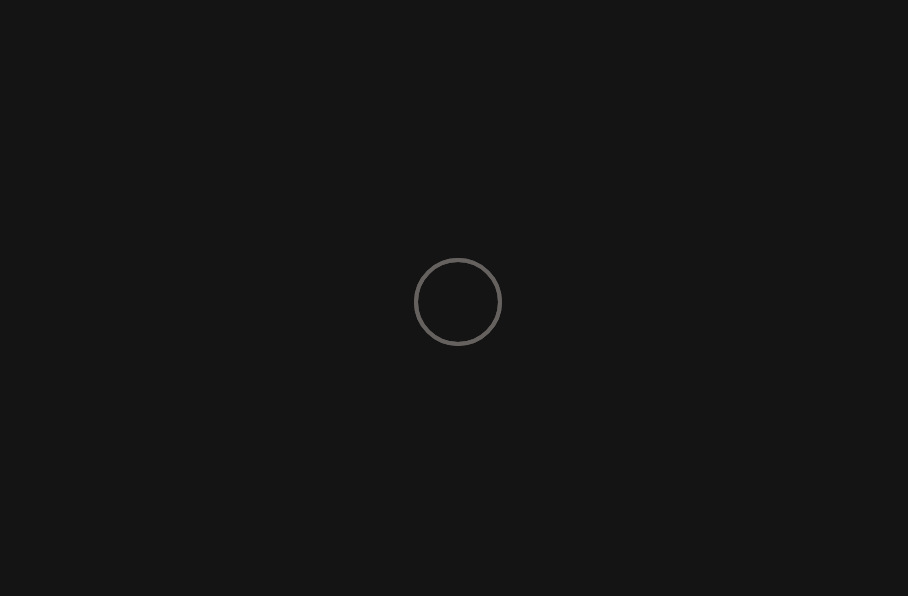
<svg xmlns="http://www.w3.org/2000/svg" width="908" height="596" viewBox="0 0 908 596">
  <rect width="100%" height="100%" fill="#141414"/>
  <circle cx="458" cy="302" r="42" fill="none" stroke="#65615f" stroke-width="4"/>
  <circle cx="458" cy="302" r="42" fill="none" stroke="#65615f" stroke-width="4"/>
</svg>
